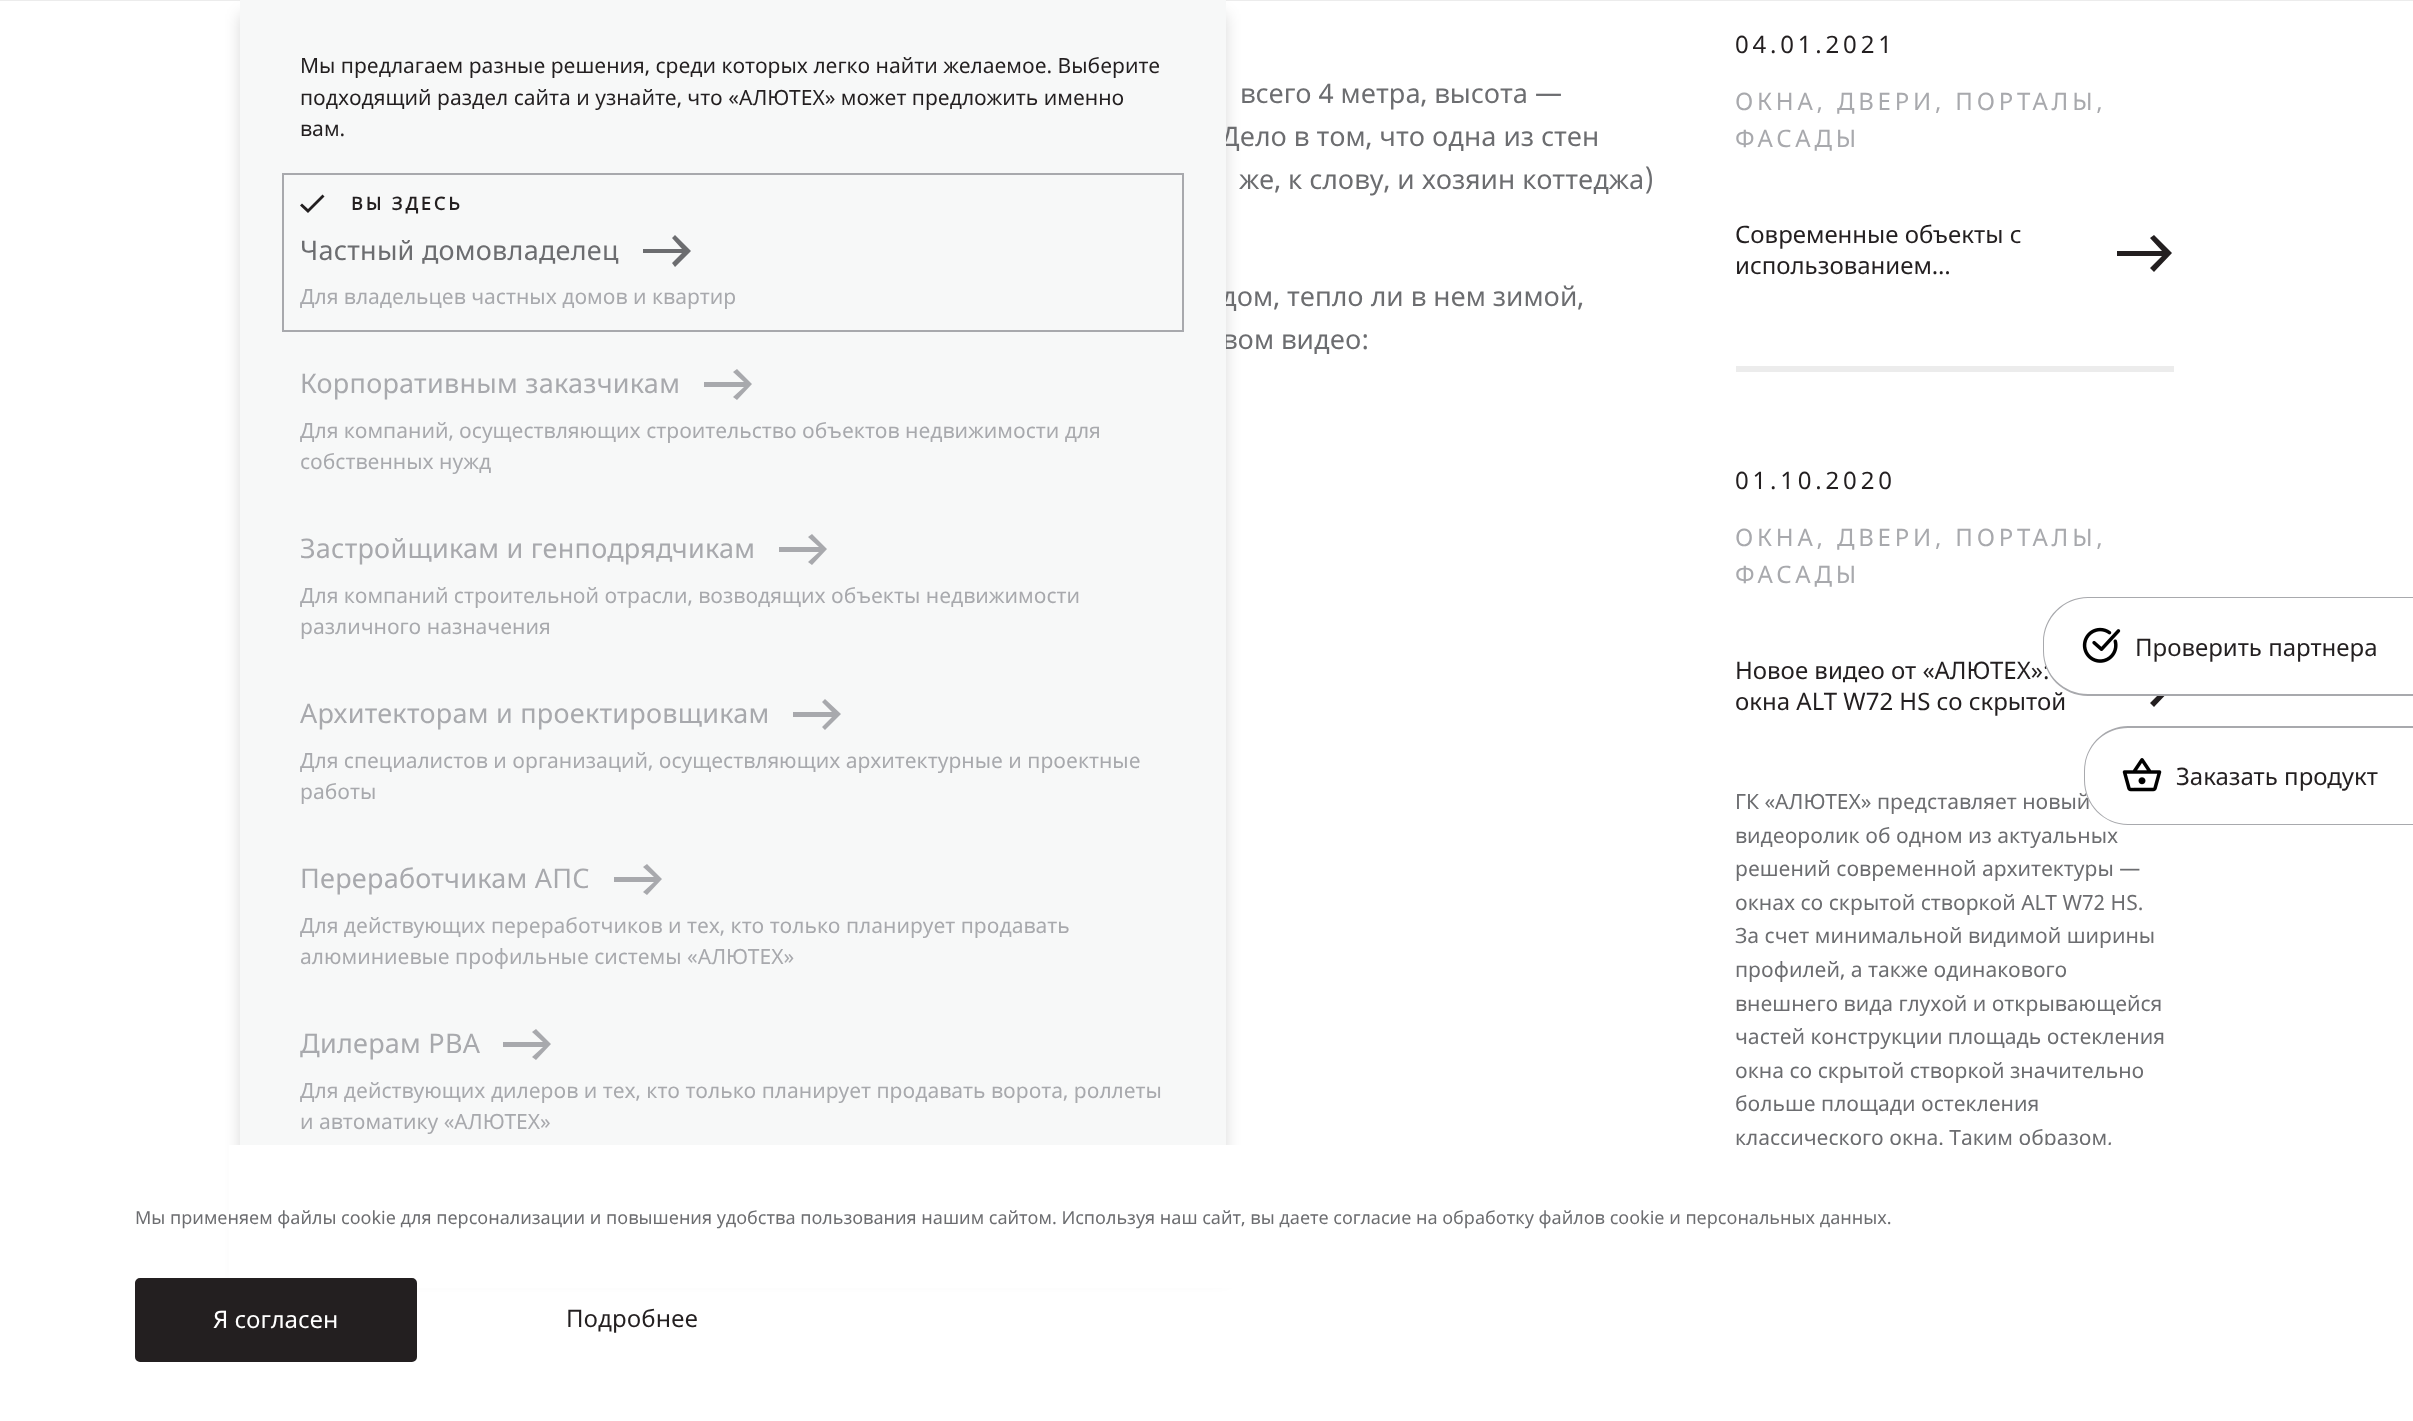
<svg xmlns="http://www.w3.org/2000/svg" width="2413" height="1421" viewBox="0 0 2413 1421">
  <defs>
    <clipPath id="clip1"><path d="M2117 225h57v57H2117z"/></clipPath>
  </defs>
  <rect width="100%" height="100%" fill="#fff"/>
  <path d="M0 0h2413v1H0z" fill="#ececec"/>
  <path d="M240 14h986v1263H240z" fill="#00000026" filter="blur(7.5px)"/>
  <path d="M1736 366h438v6H1736z" fill="#ececec"/>
  <g clip-path="url(#clip1)">
    <path d="M2116 251V256H2162L2150 268L2154 272L2172 253L2154 235L2150 238L2162 251Z" fill="#231f20"/>
  </g>
  <path d="M2116 686V691H2162L2150 703L2154 707L2172 688L2154 670L2150 673L2162 686Z" fill="#231f20"/>
  <g font-family="Noto Sans" font-size="27" fill="#6c6d70">
    <text x="1240" y="103">всего 4 метра, высота —</text>
    <text x="1221" y="146">Дело в том, что одна из стен</text>
    <text x="1239" y="189">же, к слову, и хозяин коттеджа)</text>
    <text x="1221" y="306">дом, тепло ли в нем зимой,</text>
    <text x="1222" y="349">вом видео:</text>
  </g>
  <path d="M240 0h986v1145H240z" fill="#f7f8f8"/>
  <path d="M503 1042V1047H543L532 1057L536 1060L551 1044L536 1029L532 1032L543 1042Z" fill="#a8a9ad"/>
  <text x="300" y="1053" font-family="'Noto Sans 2'" font-size="27" letter-spacing="0.25" fill="#a8a9ad">Дилерам РВА</text>
  <path d="M614 877V882H654L643 892L647 895L662 879L647 864L643 867L654 877Z" fill="#a8a9ad"/>
  <text x="300" y="888" font-family="'Noto Sans 2'" font-size="27" letter-spacing="0.25" fill="#a8a9ad">Переработчикам АПС</text>
  <path d="M793 712V717H832L822 727L825 730L841 714L825 699L822 702L832 712Z" fill="#a8a9ad"/>
  <text x="300" y="723" font-family="'Noto Sans 2'" font-size="27" letter-spacing="0.25" fill="#a8a9ad">Архитекторам и проектировщикам</text>
  <path d="M779 547V552H819L808 562L812 565L827 549L812 534L808 537L819 547Z" fill="#a8a9ad"/>
  <text x="300" y="558" font-family="'Noto Sans 2'" font-size="27" letter-spacing="0.25" fill="#a8a9ad">Застройщикам и генподрядчикам</text>
  <path d="M704 382V387H744L733 397L737 400L752 384L737 369L733 372L744 382Z" fill="#a8a9ad"/>
  <text x="300" y="393" font-family="'Noto Sans 2'" font-size="27" letter-spacing="0.25" fill="#a8a9ad">Корпоративным заказчикам</text>
  <path d="M283 174h900v157H283z" fill="none" stroke="#a8a9ad" stroke-width="2"/>
  <path d="M643 249V253H682L672 263L675 267L691 251L675 235L672 238L682 249Z" fill="#6c6d70"/>
  <text x="300" y="260" font-family="'Noto Sans 2'" font-size="27" letter-spacing="0.25" fill="#6c6d70">Частный домовладелец</text>
  <path d="M308 209L302 203.5L300 205.5L308 213L324.5 196.5L322.5 194.5Z" fill="#231f20"/>
  <g font-family="Noto Sans" font-size="21" fill="#a8a9ad">
    <text x="300" y="1129">и автоматику «АЛЮТЕХ»</text>
    <text x="300" y="1098">Для действующих дилеров и тех, кто только планирует продавать ворота, роллеты</text>
    <text x="300" y="964">алюминиевые профильные системы «АЛЮТЕХ»</text>
    <text x="300" y="933">Для действующих переработчиков и тех, кто только планирует продавать</text>
    <text x="300" y="799">работы</text>
    <text x="300" y="768">Для специалистов и организаций, осуществляющих архитектурные и проектные</text>
    <text x="300" y="634">различного назначения</text>
    <text x="300" y="603">Для компаний строительной отрасли, возводящих объекты недвижимости</text>
    <text x="300" y="469">собственных нужд</text>
    <text x="300" y="438">Для компаний, осуществляющих строительство объектов недвижимости для</text>
    <text x="300" y="304">Для владельцев частных домов и квартир</text>
  </g>
  <text x="351" y="210" font-family="Noto Sans" font-size="18" font-weight="bold" letter-spacing="3" fill="#231f20">ВЫ ЗДЕСЬ</text>
  <g font-family="Noto Sans" font-size="21" fill="#231f20">
    <text x="300" y="136">вам.</text>
    <text x="300" y="105">подходящий раздел сайта и узнайте, что «АЛЮТЕХ» может предложить именно</text>
    <text x="300" y="73">Мы предлагаем разные решения, среди которых легко найти желаемое. Выберите</text>
  </g>
  <text x="1735" y="53" font-family="'Noto Sans 2'" font-size="24" letter-spacing="3.8" fill="#231f20">04.01.2021</text>
  <g font-family="'Noto Sans 2'" font-size="24" letter-spacing="3.8" fill="#a8a9ad">
    <text x="1735" y="110">ОКНА, ДВЕРИ, ПОРТАЛЫ,</text>
    <text x="1735" y="147">ФАСАДЫ</text>
  </g>
  <g font-family="'Noto Sans 2'" font-size="24" fill="#231f20">
    <text x="1735" y="243">Современные объекты с</text>
    <text x="1735" y="274">использованием…</text>
  </g>
  <text x="1735" y="489" font-family="'Noto Sans 2'" font-size="24" letter-spacing="3.8" fill="#231f20">01.10.2020</text>
  <g font-family="'Noto Sans 2'" font-size="24" letter-spacing="3.8" fill="#a8a9ad">
    <text x="1735" y="546">ОКНА, ДВЕРИ, ПОРТАЛЫ,</text>
    <text x="1735" y="583">ФАСАДЫ</text>
  </g>
  <g font-family="'Noto Sans 2'" font-size="24" fill="#231f20">
    <text x="1735" y="679">Новое видео от «АЛЮТЕХ»:</text>
    <text x="1735" y="710">окна ALT W72 HS со скрытой</text>
  </g>
  <g font-family="Noto Sans" font-size="21" fill="#6c6d70">
    <text x="1735" y="809">ГК «АЛЮТЕХ» представляет новый</text>
    <text x="1735" y="843">видеоролик об одном из актуальных</text>
    <text x="1735" y="876">решений современной архитектуры —</text>
    <text x="1735" y="910">окнах со скрытой створкой ALT W72 HS.</text>
    <text x="1735" y="943">За счет минимальной видимой ширины</text>
    <text x="1735" y="977">профилей, а также одинакового</text>
    <text x="1735" y="1011">внешнего вида глухой и открывающейся</text>
    <text x="1735" y="1044">частей конструкции площадь остекления</text>
    <text x="1735" y="1078">окна со скрытой створкой значительно</text>
    <text x="1735" y="1111">больше площади остекления</text>
    <text x="1735" y="1145">классического окна. Таким образом,</text>
  </g>
  <path d="M2088 597H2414V696H2088C2063 696 2043 676 2043 651V642C2043 617 2063 597 2088 597Z" fill="#fff"/>
  <path d="M2088 597H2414V696H2088C2063 696 2043 676 2043 651V642C2043 617 2063 597 2088 597ZM2088 598H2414V694H2088C2064 694 2044 675 2044 651V642C2044 618 2064 598 2088 598Z" fill="#a8a9ad" fill-rule="evenodd"/>
  <image x="2082" y="627" width="39" height="36" href="img/1.png"/>
  <text x="2135" y="656" font-family="'Noto Sans 2'" font-size="24" fill="#231f20">Проверить партнера</text>
  <path d="M2129 726H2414V825H2129C2104 825 2084 805 2084 780V771C2084 746 2104 726 2129 726Z" fill="#fff"/>
  <path d="M2128 726H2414V825H2128C2104 825 2084 805 2084 780V771C2084 746 2104 726 2128 726ZM2128 728H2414V824H2128C2104 824 2085 804 2085 780V771C2085 747 2104 728 2128 728Z" fill="#a8a9ad" fill-rule="evenodd"/>
  <image x="2122" y="758" width="40" height="34" href="img/2.png"/>
  <text x="2176" y="785" font-family="'Noto Sans 2'" font-size="24" fill="#231f20">Заказать продукт</text>
  <path d="M229 1145h1882v143H229z" fill="#fff"/>
  <text x="135" y="1224" font-family="Noto Sans" font-size="18" fill="#6c6d70">Мы применяем файлы cookie для персонализации и повышения удобства пользования нашим сайтом. Используя наш сайт, вы даете согласие на обработку файлов cookie и персональных данных.</text>
  <rect x="136.5" y="1279.5" width="279" height="81" rx="3.5" fill="#231f20" stroke="#231f20" stroke-width="3"/>
  <text x="213" y="1328" font-family="Noto Sans" font-size="24" fill="#fff">Я согласен</text>
  <text x="566" y="1327" font-family="Noto Sans" font-size="24" fill="#231f20">Подробнее</text>
</svg>
